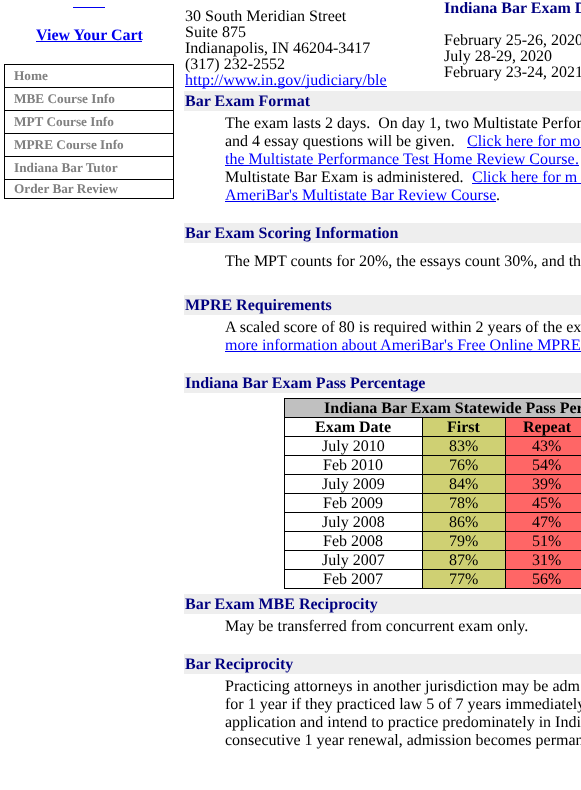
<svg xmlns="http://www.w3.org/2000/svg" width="581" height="790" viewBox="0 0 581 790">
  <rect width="100%" height="100%" fill="#fff"/>
  <path d="M73 7h32v1H73z" fill="#00e"/>
  <path d="M36 41h106v1H36z" fill="#00e"/>
  <path d="M4 64h170v135H4z" fill="#000"/>
  <path d="M5 65h168v22H5z" fill="#fff"/>
  <path d="M5 88h168v22H5z" fill="#fff"/>
  <path d="M5 111h168v22H5z" fill="#fff"/>
  <path d="M5 134h168v22H5z" fill="#fff"/>
  <path d="M5 157h168v22H5z" fill="#fff"/>
  <path d="M5 180h168v18H5z" fill="#fff"/>
  <path d="M185 86h202v1H185z" fill="#00e"/>
  <path d="M184 91h397v20H184z" fill="#eee"/>
  <path d="M467 147h114v1H467z" fill="#00e"/>
  <path d="M225 165h354v1H225z" fill="#00e"/>
  <path d="M472 183h109v1H472z" fill="#00e"/>
  <path d="M225 201h271v1H225z" fill="#00e"/>
  <path d="M184 223h397v20H184z" fill="#eee"/>
  <path d="M184 295h397v20H184z" fill="#eee"/>
  <path d="M225 351h356v1H225z" fill="#00e"/>
  <path d="M184 373h397v20H184z" fill="#eee"/>
  <path d="M285 399h296v18H285z" fill="#c0c0c0"/>
  <path d="M284 398h297v1H284z" fill="#000"/>
  <path d="M505 588h76v1H505z" fill="#000"/>
  <path d="M505 569h1v20H505z" fill="#000"/>
  <path d="M505 569h76v1H505z" fill="#000"/>
  <path d="M505 550h1v20H505z" fill="#000"/>
  <path d="M505 550h76v1H505z" fill="#000"/>
  <path d="M505 531h1v20H505z" fill="#000"/>
  <path d="M505 531h76v1H505z" fill="#000"/>
  <path d="M505 512h1v20H505z" fill="#000"/>
  <path d="M505 512h76v1H505z" fill="#000"/>
  <path d="M505 493h1v20H505z" fill="#000"/>
  <path d="M505 493h76v1H505z" fill="#000"/>
  <path d="M505 474h1v20H505z" fill="#000"/>
  <path d="M505 474h76v1H505z" fill="#000"/>
  <path d="M505 455h1v20H505z" fill="#000"/>
  <path d="M505 455h76v1H505z" fill="#000"/>
  <path d="M505 436h1v20H505z" fill="#000"/>
  <path d="M505 436h76v1H505z" fill="#000"/>
  <path d="M505 417h1v20H505z" fill="#000"/>
  <path d="M422 588h84v1H422z" fill="#000"/>
  <path d="M422 569h1v20H422z" fill="#000"/>
  <path d="M422 569h84v1H422z" fill="#000"/>
  <path d="M422 550h1v20H422z" fill="#000"/>
  <path d="M422 550h84v1H422z" fill="#000"/>
  <path d="M422 531h1v20H422z" fill="#000"/>
  <path d="M422 531h84v1H422z" fill="#000"/>
  <path d="M422 512h1v20H422z" fill="#000"/>
  <path d="M422 512h84v1H422z" fill="#000"/>
  <path d="M422 493h1v20H422z" fill="#000"/>
  <path d="M422 493h84v1H422z" fill="#000"/>
  <path d="M422 474h1v20H422z" fill="#000"/>
  <path d="M422 474h84v1H422z" fill="#000"/>
  <path d="M422 455h1v20H422z" fill="#000"/>
  <path d="M422 455h84v1H422z" fill="#000"/>
  <path d="M422 436h1v20H422z" fill="#000"/>
  <path d="M422 436h84v1H422z" fill="#000"/>
  <path d="M422 417h1v20H422z" fill="#000"/>
  <path d="M284 588h139v1H284z" fill="#000"/>
  <path d="M284 569h1v20H284z" fill="#000"/>
  <path d="M284 569h139v1H284z" fill="#000"/>
  <path d="M284 550h1v20H284z" fill="#000"/>
  <path d="M284 550h139v1H284z" fill="#000"/>
  <path d="M284 531h1v20H284z" fill="#000"/>
  <path d="M284 531h139v1H284z" fill="#000"/>
  <path d="M284 512h1v20H284z" fill="#000"/>
  <path d="M284 512h139v1H284z" fill="#000"/>
  <path d="M284 493h1v20H284z" fill="#000"/>
  <path d="M284 493h139v1H284z" fill="#000"/>
  <path d="M284 474h1v20H284z" fill="#000"/>
  <path d="M284 474h139v1H284z" fill="#000"/>
  <path d="M284 455h1v20H284z" fill="#000"/>
  <path d="M284 455h139v1H284z" fill="#000"/>
  <path d="M284 436h1v20H284z" fill="#000"/>
  <path d="M284 436h139v1H284z" fill="#000"/>
  <path d="M284 417h1v20H284z" fill="#000"/>
  <path d="M284 417h297v1H284z" fill="#000"/>
  <path d="M284 398h1v20H284z" fill="#000"/>
  <path d="M423 418h82v18H423z" fill="#cfd073"/>
  <path d="M506 418h75v18H506z" fill="#f66"/>
  <path d="M423 437h82v18H423z" fill="#cfd073"/>
  <path d="M506 437h75v18H506z" fill="#f66"/>
  <path d="M423 456h82v18H423z" fill="#cfd073"/>
  <path d="M506 456h75v18H506z" fill="#f66"/>
  <path d="M423 475h82v18H423z" fill="#cfd073"/>
  <path d="M506 475h75v18H506z" fill="#f66"/>
  <path d="M423 494h82v18H423z" fill="#cfd073"/>
  <path d="M506 494h75v18H506z" fill="#f66"/>
  <path d="M423 513h82v18H423z" fill="#cfd073"/>
  <path d="M506 513h75v18H506z" fill="#f66"/>
  <path d="M423 532h82v18H423z" fill="#cfd073"/>
  <path d="M506 532h75v18H506z" fill="#f66"/>
  <path d="M423 551h82v18H423z" fill="#cfd073"/>
  <path d="M506 551h75v18H506z" fill="#f66"/>
  <path d="M423 570h82v18H423z" fill="#cfd073"/>
  <path d="M506 570h75v18H506z" fill="#f66"/>
  <path d="M184 594h397v20H184z" fill="#eee"/>
  <path d="M184 654h397v20H184z" fill="#eee"/>
  <text x="36" y="40" font-family="Liberation Serif" font-size="16" font-weight="bold" fill="#00e">View Your Cart</text>
  <g font-family="Liberation Serif" font-size="13.25" font-weight="bold" fill="#808080">
    <text x="14" y="80">Home</text>
    <text x="14" y="103">MBE Course Info</text>
    <text x="14" y="126">MPT Course Info</text>
    <text x="14" y="149">MPRE Course Info</text>
    <text x="14" y="172">Indiana Bar Tutor</text>
    <text x="14" y="193">Order Bar Review</text>
  </g>
  <g font-family="Liberation Serif" font-size="16" fill="#000">
    <text x="185" y="21">30 South Meridian Street</text>
    <text x="185" y="37">Suite 875</text>
    <text x="185" y="53">Indianapolis, IN 46204-3417</text>
    <text x="185" y="69">(317) 232-2552</text>
  </g>
  <text x="185" y="85" font-family="Liberation Serif" font-size="16" fill="#00f">http://www.in.gov/judiciary/ble</text>
  <text x="444" y="13" font-family="Liberation Serif" font-size="16" font-weight="bold" fill="#000080">Indiana Bar Exam D</text>
  <g font-family="Liberation Serif" font-size="16" fill="#000">
    <text x="444" y="45">February 25-26, 2020</text>
    <text x="444" y="61">July 28-29, 2020</text>
    <text x="444" y="77">February 23-24, 2021</text>
  </g>
  <text x="185" y="106" font-family="Liberation Serif" font-size="16" font-weight="bold" fill="#000080">Bar Exam Format</text>
  <g font-family="Liberation Serif" font-size="16" fill="#000">
    <text x="225" y="128" xml:space="preserve">The exam lasts 2 days.  On day 1, two Multistate Perfor</text>
    <text x="225" y="146">and 4 essay questions will be given.</text>
  </g>
  <g font-family="Liberation Serif" font-size="16" fill="#00f">
    <text x="467" y="146">Click here for mo</text>
    <text x="225" y="164">the Multistate Performance Test Home Review Course</text>
  </g>
  <text x="575" y="164" font-family="Liberation Serif" font-size="16" fill="#00e">.</text>
  <text x="225" y="182" font-family="Liberation Serif" font-size="16" fill="#000">Multistate Bar Exam is administered.</text>
  <g font-family="Liberation Serif" font-size="16" fill="#00f">
    <text x="472" y="182">Click here for m</text>
    <text x="225" y="200">AmeriBar's Multistate Bar Review Course</text>
  </g>
  <text x="496" y="200" font-family="Liberation Serif" font-size="16" fill="#000">.</text>
  <text x="185" y="238" font-family="Liberation Serif" font-size="16" font-weight="bold" fill="#000080">Bar Exam Scoring Information</text>
  <text x="225" y="266" font-family="Liberation Serif" font-size="16" fill="#000">The MPT counts for 20%, the essays count 30%, and th</text>
  <text x="185" y="310" font-family="Liberation Serif" font-size="16" font-weight="bold" fill="#000080">MPRE Requirements</text>
  <text x="225" y="332" font-family="Liberation Serif" font-size="16" fill="#000">A scaled score of 80 is required within 2 years of the ex</text>
  <text x="225" y="350" font-family="Liberation Serif" font-size="16" fill="#00f">more information about AmeriBar's Free Online MPRE</text>
  <text x="185" y="388" font-family="Liberation Serif" font-size="16" font-weight="bold" fill="#000080">Indiana Bar Exam Pass Percentage</text>
  <g font-family="Liberation Serif" font-size="16" font-weight="bold" fill="#000">
    <text x="324" y="413">Indiana Bar Exam Statewide Pass Per</text>
    <text x="315" y="432">Exam Date</text>
    <text x="447" y="432">First</text>
    <text x="523" y="432">Repeat</text>
  </g>
  <g font-family="Liberation Serif" font-size="16" fill="#000">
    <text x="322" y="451">July 2010</text>
    <text x="449" y="451">83%</text>
    <text x="532" y="451">43%</text>
    <text x="323" y="470">Feb 2010</text>
    <text x="449" y="470">76%</text>
    <text x="532" y="470">54%</text>
    <text x="322" y="489">July 2009</text>
    <text x="449" y="489">84%</text>
    <text x="532" y="489">39%</text>
    <text x="323" y="508">Feb 2009</text>
    <text x="449" y="508">78%</text>
    <text x="532" y="508">45%</text>
    <text x="322" y="527">July 2008</text>
    <text x="449" y="527">86%</text>
    <text x="532" y="527">47%</text>
    <text x="323" y="546">Feb 2008</text>
    <text x="449" y="546">79%</text>
    <text x="532" y="546">51%</text>
    <text x="322" y="565">July 2007</text>
    <text x="449" y="565">87%</text>
    <text x="532" y="565">31%</text>
    <text x="323" y="584">Feb 2007</text>
    <text x="449" y="584">77%</text>
    <text x="532" y="584">56%</text>
  </g>
  <text x="185" y="609" font-family="Liberation Serif" font-size="16" font-weight="bold" fill="#000080">Bar Exam MBE Reciprocity</text>
  <text x="225" y="631" font-family="Liberation Serif" font-size="16" fill="#000">May be transferred from concurrent exam only.</text>
  <text x="185" y="669" font-family="Liberation Serif" font-size="16" font-weight="bold" fill="#000080">Bar Reciprocity</text>
  <g font-family="Liberation Serif" font-size="16" fill="#000">
    <text x="225" y="691">Practicing attorneys in another jurisdiction may be adm</text>
    <text x="225" y="709">for 1 year if they practiced law 5 of 7 years immediately</text>
    <text x="225" y="727">application and intend to practice predominately in Indi</text>
    <text x="225" y="745">consecutive 1 year renewal, admission becomes perman</text>
  </g>
</svg>
